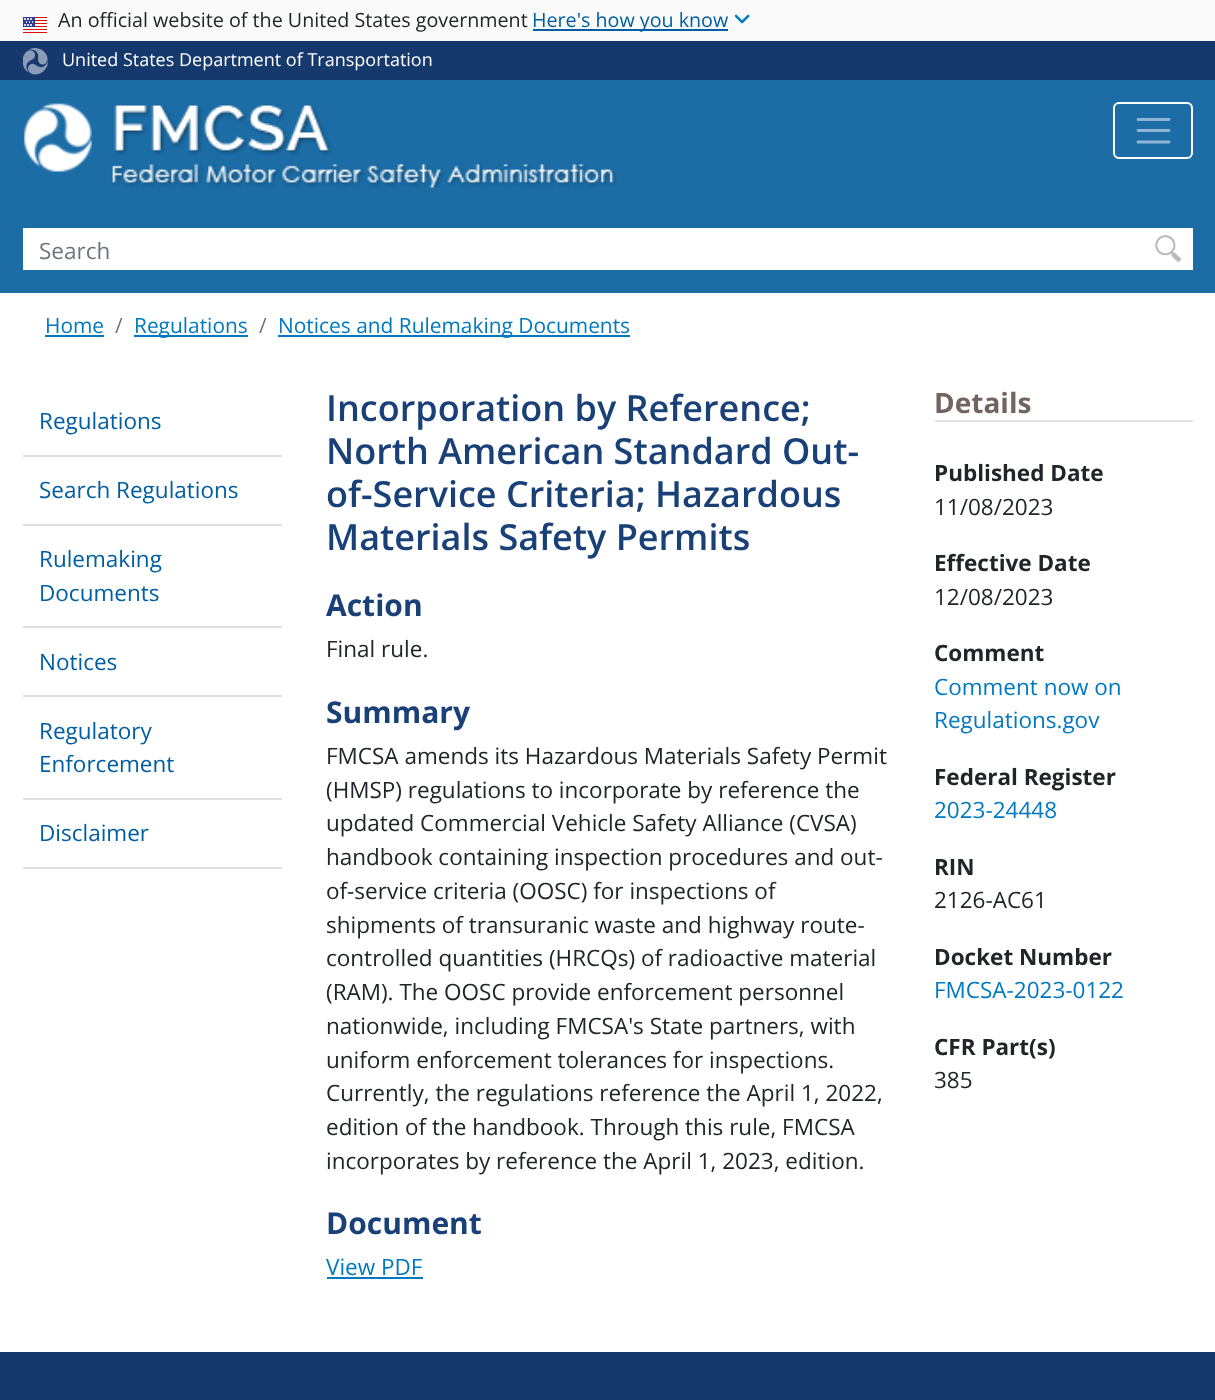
<svg xmlns="http://www.w3.org/2000/svg" width="1215" height="1400" viewBox="0 0 1215 1400">
  <rect width="100%" height="100%" fill="#fff"/>
  <path d="M0 0h1215v41H0z" fill="#fafafa"/>
  <image x="23" y="17" width="24" height="16" href="img/1.png"/>
  <path d="M533 29h195v2H533z" fill="#005ea2"/>
  <image x="734" y="14" width="16" height="10" href="img/2.png"/>
  <path d="M0 41h1215v39H0z" fill="#15396c"/>
  <image x="23" y="48" width="25" height="27" href="img/3.png"/>
  <path d="M0 80h1215v213H0z" fill="#1c6da6"/>
  <image x="23" y="103" width="594" height="85" href="img/4.png"/>
  <rect x="1114" y="103" width="78" height="55" rx="5" fill="none" stroke="#fff" stroke-width="2"/>
  <path d="M1138 119.5H1169M1138 130.5H1169M1138 142H1169" fill="none" stroke="#8eb6d3" stroke-width="2.8" stroke-linecap="round"/>
  <path d="M23 228h1170v42H23z" fill="#fff"/>
  <image x="1155" y="235" width="27" height="27" href="img/5.png"/>
  <path d="M45 335h59v2H45z" fill="#0079c0"/>
  <path d="M134 335h114v2H134z" fill="#0079c0"/>
  <path d="M278 335h352v2H278z" fill="#0079c0"/>
  <path d="M23 455h259v2H23z" fill="#dfdfdf"/>
  <path d="M23 524h259v2H23z" fill="#dfdfdf"/>
  <path d="M23 626h259v2H23z" fill="#dfdfdf"/>
  <path d="M23 695h259v2H23z" fill="#dfdfdf"/>
  <path d="M23 798h259v2H23z" fill="#dfdfdf"/>
  <path d="M23 867h259v2H23z" fill="#dfdfdf"/>
  <path d="M327 1277h96v2H327z" fill="#0079c0"/>
  <path d="M935 420h258v2H935z" fill="#dee2e6"/>
  <path d="M0 1352h1215v48H0z" fill="#15396c"/>
  <text x="58" y="27" font-family="Open Sans" font-size="19.7" fill="#212529">An official website of the United States government</text>
  <text x="532" y="27" font-family="Open Sans" font-size="19.7" fill="#005ea2">Here's how you know</text>
  <text x="62" y="66" font-family="Open Sans" font-size="18" fill="#fff">United States Department of Transportation</text>
  <text x="39" y="259" font-family="Open Sans" font-size="22.5" fill="#6c757d">Search</text>
  <text x="45" y="333" font-family="Open Sans" font-size="20.9" fill="#0079c0">Home</text>
  <text x="115" y="333" font-family="Open Sans" font-size="20.9" fill="#6c757d">/</text>
  <text x="134" y="333" font-family="Open Sans" font-size="20.9" fill="#0079c0">Regulations</text>
  <text x="259" y="333" font-family="Open Sans" font-size="20.9" fill="#6c757d">/</text>
  <text x="278" y="333" font-family="Open Sans" font-size="20.9" fill="#0079c0">Notices and Rulemaking Documents</text>
  <g font-family="Open Sans" font-size="22.5" fill="#005ea2">
    <text x="39" y="429">Regulations</text>
    <text x="39" y="498">Search Regulations</text>
    <text x="39" y="567">Rulemaking</text>
    <text x="39" y="601">Documents</text>
    <text x="39" y="670">Notices</text>
    <text x="39" y="739">Regulatory</text>
    <text x="39" y="772">Enforcement</text>
    <text x="39" y="841">Disclaimer</text>
  </g>
  <g font-family="Open Sans" font-size="36" font-weight="600" fill="#194178">
    <text x="326" y="421">Incorporation by Reference;</text>
    <text x="326" y="464">North American Standard Out-</text>
    <text x="326" y="507">of-Service Criteria; Hazardous</text>
    <text x="326" y="550">Materials Safety Permits</text>
  </g>
  <text x="326" y="616" font-family="Open Sans" font-size="30" font-weight="bold" fill="#194178">Action</text>
  <text x="326" y="657" font-family="Open Sans" font-size="22.5" fill="#212529">Final rule.</text>
  <text x="326" y="723" font-family="Open Sans" font-size="30" font-weight="bold" fill="#194178">Summary</text>
  <g font-family="Open Sans" font-size="22.5" fill="#212529">
    <text x="326" y="764">FMCSA amends its Hazardous Materials Safety Permit</text>
    <text x="326" y="798">(HMSP) regulations to incorporate by reference the</text>
    <text x="326" y="831">updated Commercial Vehicle Safety Alliance (CVSA)</text>
    <text x="326" y="865">handbook containing inspection procedures and out-</text>
    <text x="326" y="899">of-service criteria (OOSC) for inspections of</text>
    <text x="326" y="933">shipments of transuranic waste and highway route-</text>
    <text x="326" y="966">controlled quantities (HRCQs) of radioactive material</text>
    <text x="326" y="1000">(RAM). The OOSC provide enforcement personnel</text>
    <text x="326" y="1034">nationwide, including FMCSA's State partners, with</text>
    <text x="326" y="1068">uniform enforcement tolerances for inspections.</text>
    <text x="326" y="1101">Currently, the regulations reference the April 1, 2022,</text>
    <text x="326" y="1135">edition of the handbook. Through this rule, FMCSA</text>
    <text x="326" y="1169">incorporates by reference the April 1, 2023, edition.</text>
  </g>
  <text x="326" y="1234" font-family="Open Sans" font-size="30" font-weight="bold" fill="#194178">Document</text>
  <text x="326" y="1275" font-family="Open Sans" font-size="22.5" fill="#0079c0">View PDF</text>
  <text x="934" y="413" font-family="Open Sans" font-size="28" font-weight="bold" fill="#72655f">Details</text>
  <text x="934" y="481" font-family="Open Sans" font-size="22.5" font-weight="bold" fill="#212529">Published Date</text>
  <text x="934" y="515" font-family="Open Sans" font-size="22.5" fill="#212529">11/08/2023</text>
  <text x="934" y="571" font-family="Open Sans" font-size="22.5" font-weight="bold" fill="#212529">Effective Date</text>
  <text x="934" y="605" font-family="Open Sans" font-size="22.5" fill="#212529">12/08/2023</text>
  <text x="934" y="661" font-family="Open Sans" font-size="22.5" font-weight="bold" fill="#212529">Comment</text>
  <g font-family="Open Sans" font-size="22.5" fill="#0079c0">
    <text x="934" y="695">Comment now on</text>
    <text x="934" y="728">Regulations.gov</text>
  </g>
  <text x="934" y="785" font-family="Open Sans" font-size="22.5" font-weight="bold" fill="#212529">Federal Register</text>
  <text x="934" y="818" font-family="Open Sans" font-size="22.5" fill="#0079c0">2023-24448</text>
  <text x="934" y="875" font-family="Open Sans" font-size="22.5" font-weight="bold" fill="#212529">RIN</text>
  <text x="934" y="908" font-family="Open Sans" font-size="22.5" fill="#212529">2126-AC61</text>
  <text x="934" y="965" font-family="Open Sans" font-size="22.5" font-weight="bold" fill="#212529">Docket Number</text>
  <text x="934" y="998" font-family="Open Sans" font-size="22.5" fill="#0079c0">FMCSA-2023-0122</text>
  <text x="934" y="1055" font-family="Open Sans" font-size="22.5" font-weight="bold" fill="#212529">CFR Part(s)</text>
  <text x="934" y="1088" font-family="Open Sans" font-size="22.5" fill="#212529">385</text>
</svg>
